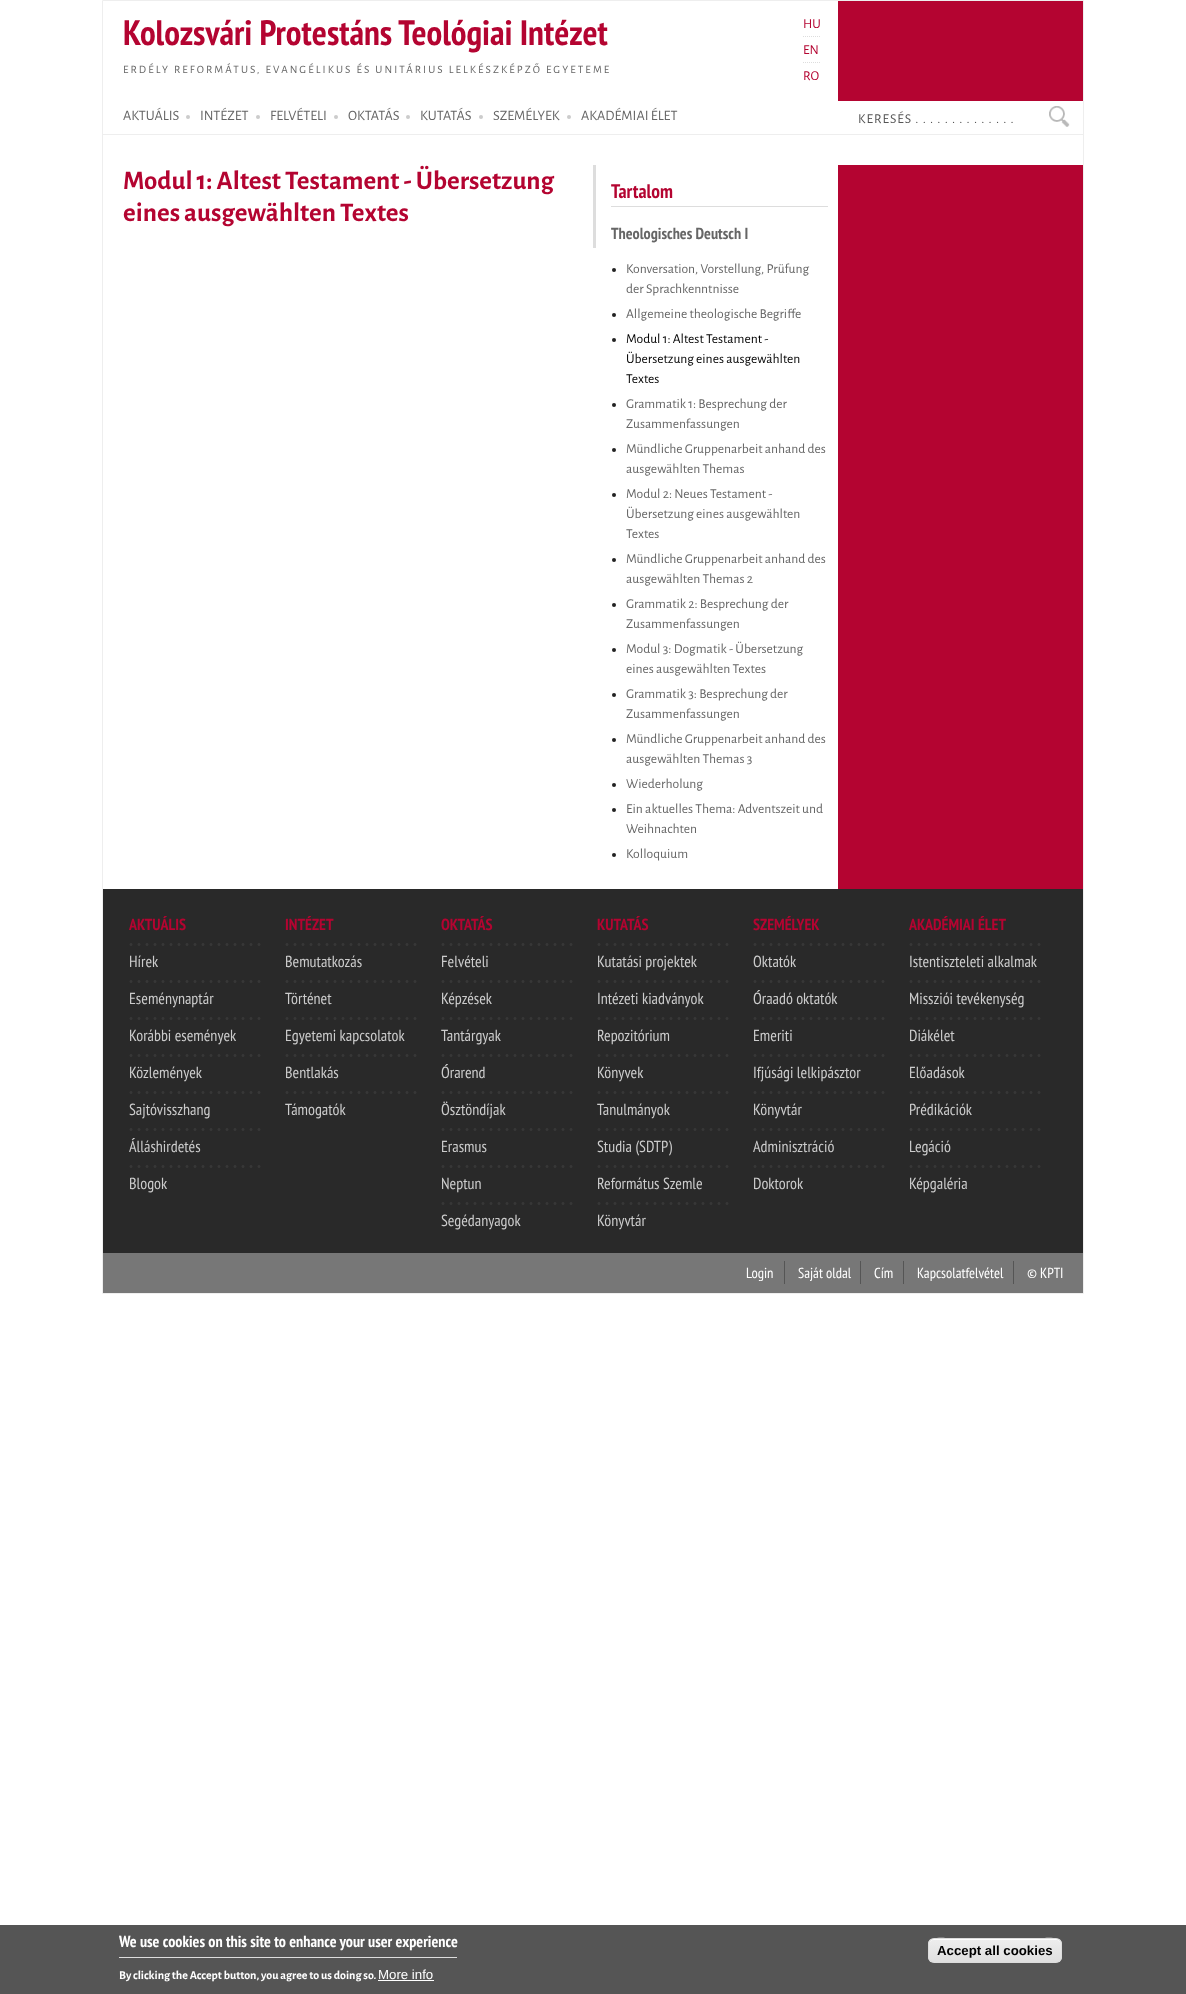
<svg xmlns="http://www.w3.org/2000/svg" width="1186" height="1994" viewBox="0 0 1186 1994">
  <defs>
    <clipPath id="clip1"><rect x="928" y="1938" width="134" height="25" rx="6"/></clipPath>
    <linearGradient id="g1" gradientUnits="userSpaceOnUse" x1="995" y1="1939" x2="995" y2="1962"><stop offset="0.05" stop-color="#ededed"/><stop offset="1" stop-color="#dfdfdf"/></linearGradient>
  </defs>
  <rect width="100%" height="100%" fill="#fff"/>
  <path d="M838 1h245v888H838z" fill="#b40431"/>
  <path d="M102.5 0.5h981v1293H102.5z" fill="none" stroke="#eee"/>
  <path d="M803 36.5H821M803 62.5H821" fill="none" stroke="#ddd" stroke-dasharray="1 1"/>
  <path d="M838 101h245v64H838z" fill="#fff"/>
  <circle cx="188" cy="117" r="2" fill="#ccc"/>
  <circle cx="258" cy="117" r="2" fill="#ccc"/>
  <circle cx="336" cy="117" r="2" fill="#ccc"/>
  <circle cx="408" cy="117" r="2" fill="#ccc"/>
  <circle cx="481" cy="117" r="2" fill="#ccc"/>
  <circle cx="569" cy="117" r="2" fill="#ccc"/>
  <path d="M103 134h980v1H103z" fill="#eee"/>
  <image x="1049" y="106" width="21" height="21" href="img/1.png"/>
  <path d="M593 165h3v83H593z" fill="#ddd"/>
  <path d="M611 206h217v1H611z" fill="#ddd"/>
  <circle cx="614" cy="270" r="2" fill="#222"/>
  <circle cx="614" cy="315" r="2" fill="#222"/>
  <circle cx="614" cy="340" r="2" fill="#222"/>
  <circle cx="614" cy="405" r="2" fill="#222"/>
  <circle cx="614" cy="450" r="2" fill="#222"/>
  <circle cx="614" cy="495" r="2" fill="#222"/>
  <circle cx="614" cy="560" r="2" fill="#222"/>
  <circle cx="614" cy="605" r="2" fill="#222"/>
  <circle cx="614" cy="650" r="2" fill="#222"/>
  <circle cx="614" cy="695" r="2" fill="#222"/>
  <circle cx="614" cy="740" r="2" fill="#222"/>
  <circle cx="614" cy="785" r="2" fill="#222"/>
  <circle cx="614" cy="810" r="2" fill="#222"/>
  <circle cx="614" cy="855" r="2" fill="#222"/>
  <path d="M103 889h980v364H103z" fill="#292929"/>
  <image x="129" y="943" width="132" height="3" href="img/2.png"/>
  <image x="129" y="980" width="132" height="3" href="img/2.png"/>
  <image x="129" y="1017" width="132" height="3" href="img/2.png"/>
  <image x="129" y="1054" width="132" height="3" href="img/2.png"/>
  <image x="129" y="1091" width="132" height="3" href="img/2.png"/>
  <image x="129" y="1128" width="132" height="3" href="img/2.png"/>
  <image x="129" y="1165" width="132" height="3" href="img/2.png"/>
  <image x="285" y="943" width="132" height="3" href="img/2.png"/>
  <image x="285" y="980" width="132" height="3" href="img/2.png"/>
  <image x="285" y="1017" width="132" height="3" href="img/2.png"/>
  <image x="285" y="1054" width="132" height="3" href="img/2.png"/>
  <image x="285" y="1091" width="132" height="3" href="img/2.png"/>
  <image x="441" y="943" width="132" height="3" href="img/2.png"/>
  <image x="441" y="980" width="132" height="3" href="img/2.png"/>
  <image x="441" y="1017" width="132" height="3" href="img/2.png"/>
  <image x="441" y="1054" width="132" height="3" href="img/2.png"/>
  <image x="441" y="1091" width="132" height="3" href="img/2.png"/>
  <image x="441" y="1128" width="132" height="3" href="img/2.png"/>
  <image x="441" y="1165" width="132" height="3" href="img/2.png"/>
  <image x="441" y="1202" width="132" height="3" href="img/2.png"/>
  <image x="597" y="943" width="132" height="3" href="img/2.png"/>
  <image x="597" y="980" width="132" height="3" href="img/2.png"/>
  <image x="597" y="1017" width="132" height="3" href="img/2.png"/>
  <image x="597" y="1054" width="132" height="3" href="img/2.png"/>
  <image x="597" y="1091" width="132" height="3" href="img/2.png"/>
  <image x="597" y="1128" width="132" height="3" href="img/2.png"/>
  <image x="597" y="1165" width="132" height="3" href="img/2.png"/>
  <image x="597" y="1202" width="132" height="3" href="img/2.png"/>
  <image x="753" y="943" width="132" height="3" href="img/2.png"/>
  <image x="753" y="980" width="132" height="3" href="img/2.png"/>
  <image x="753" y="1017" width="132" height="3" href="img/2.png"/>
  <image x="753" y="1054" width="132" height="3" href="img/2.png"/>
  <image x="753" y="1091" width="132" height="3" href="img/2.png"/>
  <image x="753" y="1128" width="132" height="3" href="img/2.png"/>
  <image x="753" y="1165" width="132" height="3" href="img/2.png"/>
  <image x="909" y="943" width="132" height="3" href="img/2.png"/>
  <image x="909" y="980" width="132" height="3" href="img/2.png"/>
  <image x="909" y="1017" width="132" height="3" href="img/2.png"/>
  <image x="909" y="1054" width="132" height="3" href="img/2.png"/>
  <image x="909" y="1091" width="132" height="3" href="img/2.png"/>
  <image x="909" y="1128" width="132" height="3" href="img/2.png"/>
  <image x="909" y="1165" width="132" height="3" href="img/2.png"/>
  <path d="M103 1253h980v40H103z" fill="#777"/>
  <path d="M784 1261h1v23H784z" fill="#555"/>
  <path d="M860 1261h1v23H860z" fill="#555"/>
  <path d="M903 1261h1v23H903z" fill="#555"/>
  <path d="M1013 1261h1v23H1013z" fill="#555"/>
  <path d="M0 1925h1186v69H0z" fill="#555"/>
  <path d="M119 1957h338v1H119z" fill="#ddd"/>
  <path d="M378 1980h56v1H378z" fill="#fff"/>
  <g clip-path="url(#clip1)">
    <path d="M928 1939h134v23H928z" fill="url(#g1)"/>
  </g>
  <path d="M934 1940H1056C1059 1940 1061 1942 1061 1945C1061 1934 1039 1939 1036 1939H954C951 1939 929 1934 929 1945C929 1942 931 1940 934 1940Z" fill="#fff"/>
  <rect x="928.5" y="1938.5" width="133" height="24" rx="5.5" fill="none" stroke="#dcdcdc"/>
  <text x="123" y="45" font-family="PT Sans Narrow" font-size="35.25" font-weight="bold" fill="#b40431">Kolozsvári Protestáns Teológiai Intézet</text>
  <text x="123" y="73" font-family="Alegreya Sans" font-size="11.25" letter-spacing="2.1" fill="#666">ERDÉLY REFORMÁTUS, EVANGÉLIKUS ÉS UNITÁRIUS LELKÉSZKÉPZŐ EGYETEME</text>
  <g font-family="Alegreya Sans" font-size="13.6" fill="#b40431">
    <text x="803" y="28">HU</text>
    <text x="803" y="54">EN</text>
    <text x="803" y="80">RO</text>
  </g>
  <g font-family="Alegreya Sans" font-size="14.25" fill="#666">
    <text x="123" y="120">AKTUÁLIS</text>
    <text x="200" y="120">INTÉZET</text>
    <text x="270" y="120">FELVÉTELI</text>
    <text x="348" y="120">OKTATÁS</text>
    <text x="420" y="120">KUTATÁS</text>
    <text x="493" y="120">SZEMÉLYEK</text>
    <text x="581" y="120">AKADÉMIAI ÉLET</text>
  </g>
  <text x="858" y="123" font-family="Alegreya Sans" font-size="13.5" letter-spacing="1" fill="#555">KERESÉS . . . . . . . . . . . . . .</text>
  <g font-family="Alegreya Sans" font-size="26.9" font-weight="bold" fill="#b40431">
    <text x="123" y="189">Modul 1: Altest Testament - Übersetzung</text>
    <text x="123" y="221">eines ausgewählten Textes</text>
  </g>
  <text x="611" y="198" font-family="PT Sans Narrow" font-size="19.5" font-weight="bold" fill="#b40431">Tartalom</text>
  <text x="611" y="239" font-family="PT Sans Narrow" font-size="16" font-weight="bold" fill="#666">Theologisches Deutsch I</text>
  <g font-family="Alegreya Sans" font-size="13.6" fill="#666">
    <text x="626" y="273">Konversation, Vorstellung, Prüfung</text>
    <text x="626" y="293">der Sprachkenntnisse</text>
    <text x="626" y="318">Allgemeine theologische Begriffe</text>
  </g>
  <g font-family="Alegreya Sans" font-size="13.6" fill="#000">
    <text x="626" y="343">Modul 1: Altest Testament -</text>
    <text x="626" y="363">Übersetzung eines ausgewählten</text>
    <text x="626" y="383">Textes</text>
  </g>
  <g font-family="Alegreya Sans" font-size="13.6" fill="#666">
    <text x="626" y="408">Grammatik 1: Besprechung der</text>
    <text x="626" y="428">Zusammenfassungen</text>
    <text x="626" y="453">Mündliche Gruppenarbeit anhand des</text>
    <text x="626" y="473">ausgewählten Themas</text>
    <text x="626" y="498">Modul 2: Neues Testament -</text>
    <text x="626" y="518">Übersetzung eines ausgewählten</text>
    <text x="626" y="538">Textes</text>
    <text x="626" y="563">Mündliche Gruppenarbeit anhand des</text>
    <text x="626" y="583">ausgewählten Themas 2</text>
    <text x="626" y="608">Grammatik 2: Besprechung der</text>
    <text x="626" y="628">Zusammenfassungen</text>
    <text x="626" y="653">Modul 3: Dogmatik - Übersetzung</text>
    <text x="626" y="673">eines ausgewählten Textes</text>
    <text x="626" y="698">Grammatik 3: Besprechung der</text>
    <text x="626" y="718">Zusammenfassungen</text>
    <text x="626" y="743">Mündliche Gruppenarbeit anhand des</text>
    <text x="626" y="763">ausgewählten Themas 3</text>
    <text x="626" y="788">Wiederholung</text>
    <text x="626" y="813">Ein aktuelles Thema: Adventszeit und</text>
    <text x="626" y="833">Weihnachten</text>
    <text x="626" y="858">Kolloquium</text>
  </g>
  <text x="129" y="930" font-family="PT Sans Narrow" font-size="16" font-weight="bold" fill="#b40431">AKTUÁLIS</text>
  <g font-family="PT Sans Narrow" font-size="16" fill="#ccc">
    <text x="129" y="967">Hírek</text>
    <text x="129" y="1004">Eseménynaptár</text>
    <text x="129" y="1041">Korábbi események</text>
    <text x="129" y="1078">Közlemények</text>
    <text x="129" y="1115">Sajtóvisszhang</text>
    <text x="129" y="1152">Álláshirdetés</text>
    <text x="129" y="1189">Blogok</text>
  </g>
  <text x="285" y="930" font-family="PT Sans Narrow" font-size="16" font-weight="bold" fill="#b40431">INTÉZET</text>
  <g font-family="PT Sans Narrow" font-size="16" fill="#ccc">
    <text x="285" y="967">Bemutatkozás</text>
    <text x="285" y="1004">Történet</text>
    <text x="285" y="1041">Egyetemi kapcsolatok</text>
    <text x="285" y="1078">Bentlakás</text>
    <text x="285" y="1115">Támogatók</text>
  </g>
  <text x="441" y="930" font-family="PT Sans Narrow" font-size="16" font-weight="bold" fill="#b40431">OKTATÁS</text>
  <g font-family="PT Sans Narrow" font-size="16" fill="#ccc">
    <text x="441" y="967">Felvételi</text>
    <text x="441" y="1004">Képzések</text>
    <text x="441" y="1041">Tantárgyak</text>
    <text x="441" y="1078">Órarend</text>
    <text x="441" y="1115">Ösztöndíjak</text>
    <text x="441" y="1152">Erasmus</text>
    <text x="441" y="1189">Neptun</text>
    <text x="441" y="1226">Segédanyagok</text>
  </g>
  <text x="597" y="930" font-family="PT Sans Narrow" font-size="16" font-weight="bold" fill="#b40431">KUTATÁS</text>
  <g font-family="PT Sans Narrow" font-size="16" fill="#ccc">
    <text x="597" y="967">Kutatási projektek</text>
    <text x="597" y="1004">Intézeti kiadványok</text>
    <text x="597" y="1041">Repozitórium</text>
    <text x="597" y="1078">Könyvek</text>
    <text x="597" y="1115">Tanulmányok</text>
    <text x="597" y="1152">Studia (SDTP)</text>
    <text x="597" y="1189">Református Szemle</text>
    <text x="597" y="1226">Könyvtár</text>
  </g>
  <text x="753" y="930" font-family="PT Sans Narrow" font-size="16" font-weight="bold" fill="#b40431">SZEMÉLYEK</text>
  <g font-family="PT Sans Narrow" font-size="16" fill="#ccc">
    <text x="753" y="967">Oktatók</text>
    <text x="753" y="1004">Óraadó oktatók</text>
    <text x="753" y="1041">Emeriti</text>
    <text x="753" y="1078">Ifjúsági lelkipásztor</text>
    <text x="753" y="1115">Könyvtár</text>
    <text x="753" y="1152">Adminisztráció</text>
    <text x="753" y="1189">Doktorok</text>
  </g>
  <text x="909" y="930" font-family="PT Sans Narrow" font-size="16" font-weight="bold" fill="#b40431">AKADÉMIAI ÉLET</text>
  <g font-family="PT Sans Narrow" font-size="16" fill="#ccc">
    <text x="909" y="967">Istentiszteleti alkalmak</text>
    <text x="909" y="1004">Missziói tevékenység</text>
    <text x="909" y="1041">Diákélet</text>
    <text x="909" y="1078">Előadások</text>
    <text x="909" y="1115">Prédikációk</text>
    <text x="909" y="1152">Legáció</text>
    <text x="909" y="1189">Képgaléria</text>
  </g>
  <g font-family="PT Sans Narrow" font-size="14.5" fill="#fff">
    <text x="746" y="1278">Login</text>
    <text x="798" y="1278">Saját oldal</text>
    <text x="874" y="1278">Cím</text>
    <text x="917" y="1278">Kapcsolatfelvétel</text>
    <text x="1027" y="1278">© KPTI</text>
  </g>
  <text x="119" y="1947" font-family="PT Sans Narrow" font-size="16" font-weight="bold" fill="#fff">We use cookies on this site to enhance your user experience</text>
  <text x="119" y="1979" font-family="Alegreya Sans" font-size="12" font-weight="bold" fill="#fff">By clicking the Accept button, you agree to us doing so.</text>
  <text x="378" y="1979" font-family="Liberation Sans" font-size="13.25" fill="#fff">More info</text>
  <text x="937" y="1955" font-family="Liberation Sans" font-size="13.25" font-weight="bold" fill="#000">Accept all cookies</text>
</svg>
